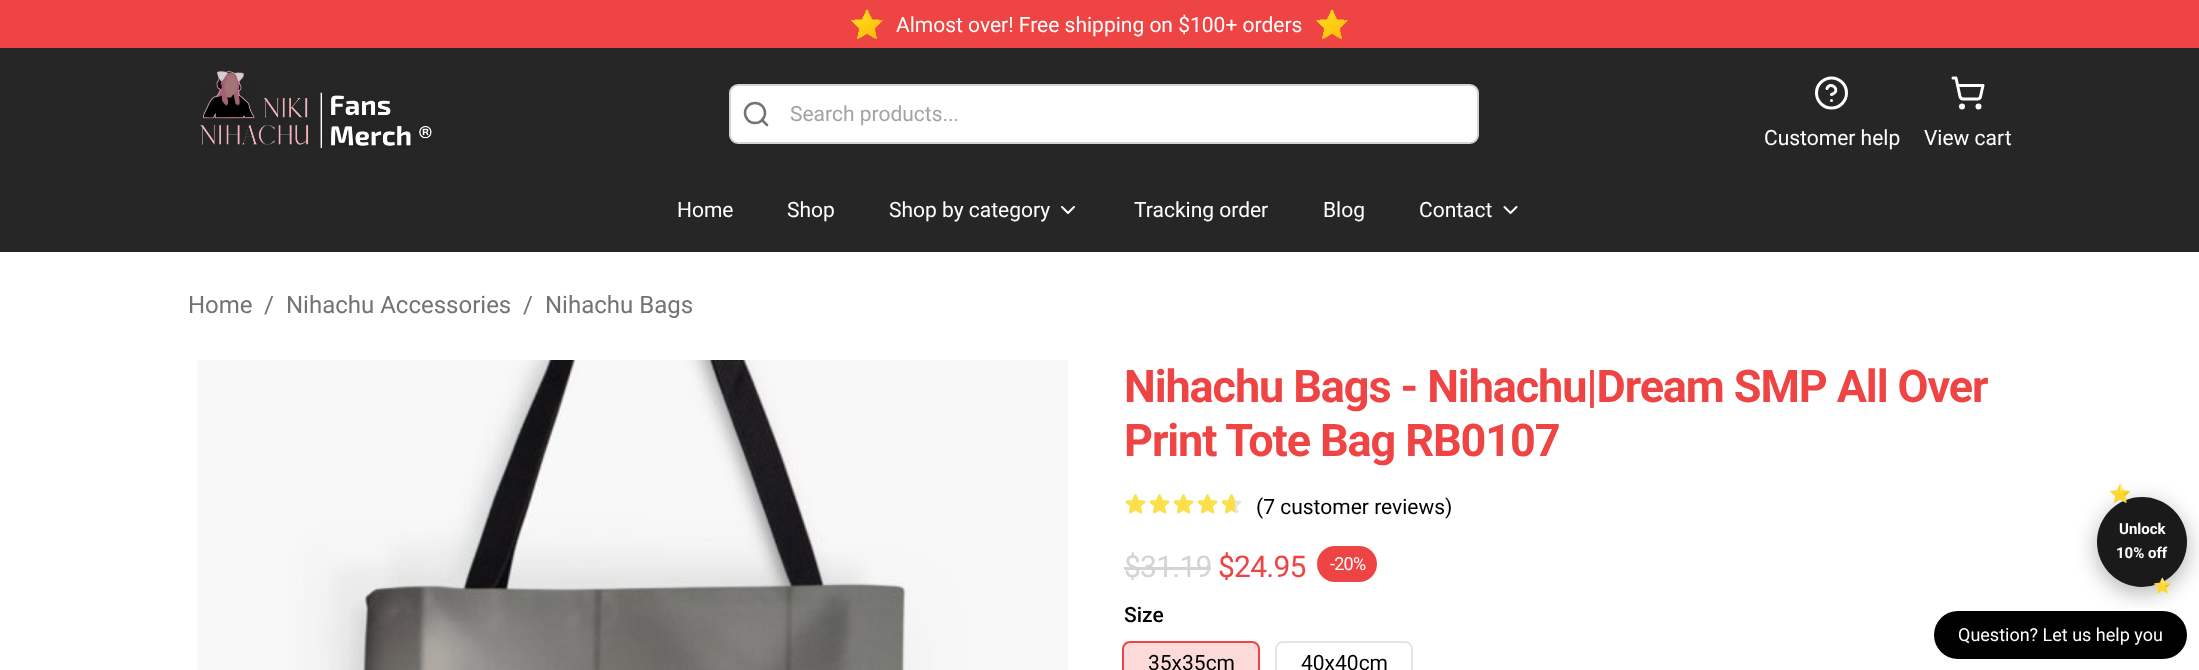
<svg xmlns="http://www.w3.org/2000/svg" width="2199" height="670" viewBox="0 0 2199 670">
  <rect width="100%" height="100%" fill="#fff"/>
  <path d="M0 0h2199v48H0z" fill="#ef4444"/>
  <image x="851" y="9" width="32" height="30" href="img/1.png"/>
  <image x="1316" y="9" width="32" height="30" href="img/1.png"/>
  <path d="M0 48h2199v204H0z" fill="#262626"/>
  <image x="200" y="71" width="232" height="77" href="img/2.png"/>
  <rect x="730" y="85" width="748" height="58" rx="8" fill="#fff" stroke="#d4d4d4" stroke-width="2"/>
  <path d="M767 125L762 120" fill="none" stroke="#737373" stroke-width="2.5" stroke-linecap="round" stroke-linejoin="round"/>
  <circle cx="755" cy="113" r="10" fill="none" stroke="#737373" stroke-width="2.5"/>
  <circle cx="1831.5" cy="93" r="15" fill="none" stroke="#fff" stroke-width="3"/>
  <path d="M1827 88.5C1830 80.5 1842.5 90.5 1831.5 94.5M1831.5 100.5H1831.5" fill="none" stroke="#fff" stroke-width="3" stroke-linecap="round" stroke-linejoin="round"/>
  <circle cx="1962" cy="106.5" r="1.5" fill="none" stroke="#fff" stroke-width="3"/>
  <circle cx="1978.5" cy="106.5" r="1.5" fill="none" stroke="#fff" stroke-width="3"/>
  <path d="M1953 78H1956L1960 96.5C1960.5 98 1961.5 99 1963 99H1977.5C1979 99 1980.5 98 1980.5 96.5L1983 85.5H1957.5" fill="none" stroke="#fff" stroke-width="3" stroke-linecap="round" stroke-linejoin="round"/>
  <path d="M1062 207L1068 213L1074 207" fill="none" stroke="#fff" stroke-width="2" stroke-linecap="round" stroke-linejoin="round"/>
  <path d="M1504.5 207L1510.5 213L1516.5 207" fill="none" stroke="#fff" stroke-width="2" stroke-linecap="round" stroke-linejoin="round"/>
  <image x="197" y="360" width="871" height="310" href="img/3.png"/>
  <image x="1125" y="494" width="21" height="20" href="img/4.png"/>
  <image x="1149" y="494" width="21" height="20" href="img/4.png"/>
  <image x="1173" y="494" width="21" height="20" href="img/4.png"/>
  <image x="1197" y="494" width="21" height="20" href="img/4.png"/>
  <image x="1221" y="494" width="21" height="20" href="img/4.png"/>
  <image x="1125" y="494" width="21" height="20" href="img/5.png"/>
  <image x="1149" y="494" width="21" height="20" href="img/5.png"/>
  <image x="1173" y="494" width="21" height="20" href="img/5.png"/>
  <image x="1197" y="494" width="21" height="20" href="img/5.png"/>
  <image x="1221" y="494" width="14" height="20" href="img/6.png"/>
  <path d="M1124 567h87v3H1124z" fill="#d4d4d4"/>
  <rect x="1317" y="546" width="60" height="36" rx="18" fill="#ef4444"/>
  <rect x="1123" y="642" width="136" height="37" rx="7" fill="none" stroke="#ef4444" stroke-width="2"/>
  <rect x="1124" y="642" width="135" height="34" rx="6" fill="#ef444433"/>
  <rect x="1276" y="642" width="136" height="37" rx="7" fill="none" stroke="#e5e5e5" stroke-width="2"/>
  <rect x="1934" y="611" width="253" height="48" rx="24" fill="#000"/>
  <rect x="2097" y="503" width="90" height="90" rx="45" fill="#0000004d" filter="blur(11px)"/>
  <circle cx="2142" cy="542" r="45" fill="#1a1a1a"/>
  <text x="896" y="32" font-family="Roboto" font-size="21" fill="#fff">Almost over! Free shipping on $100+ orders</text>
  <text x="790" y="121" font-family="Roboto" font-size="21" fill="#a3a3a3">Search products...</text>
  <g font-family="Roboto" font-size="21" fill="#fff">
    <text x="1764" y="145">Customer help</text>
    <text x="1924" y="145">View cart</text>
    <text x="677" y="217">Home</text>
    <text x="787" y="217">Shop</text>
    <text x="889" y="217">Shop by category</text>
    <text x="1134" y="217">Tracking order</text>
    <text x="1323" y="217">Blog</text>
    <text x="1419" y="217">Contact</text>
  </g>
  <g font-family="Roboto" font-size="24" fill="#737373">
    <text x="188" y="313">Home</text>
    <text x="264" y="313">/</text>
    <text x="286" y="313">Nihachu Accessories</text>
    <text x="523" y="313">/</text>
    <text x="545" y="313">Nihachu Bags</text>
  </g>
  <g font-family="Roboto" font-size="45" font-weight="bold" letter-spacing="-1.1" fill="#ef4444">
    <text x="1124" y="402">Nihachu Bags - Nihachu|Dream SMP All Over</text>
    <text x="1124" y="456">Print Tote Bag RB0107</text>
  </g>
  <text x="1256" y="514" font-family="Roboto" font-size="21" fill="#000">(7 customer reviews)</text>
  <text x="1124" y="577" font-family="Roboto" font-size="30" letter-spacing="-0.75" fill="#d4d4d4">$31.19</text>
  <text x="1218" y="577" font-family="Roboto" font-size="30" letter-spacing="-0.75" fill="#ef4444">$24.95</text>
  <text x="1330" y="570" font-family="Roboto" font-size="18" letter-spacing="-0.75" fill="#fff">-20%</text>
  <text x="1124" y="622" font-family="Roboto" font-size="21" font-weight="500" fill="#000">Size</text>
  <g font-family="Roboto" font-size="21" fill="#000">
    <text x="1148" y="670">35x35cm</text>
    <text x="1301" y="670">40x40cm</text>
  </g>
  <text x="2109" y="500" font-family="Noto Color Emoji" font-size="18" font-weight="bold" fill="#ffd700">⭐</text>
  <g font-family="Roboto" font-size="15" font-weight="bold" fill="#fff">
    <text x="2119" y="534">Unlock</text>
    <text x="2116" y="558">10% off</text>
  </g>
  <text x="2153" y="591" font-family="Noto Color Emoji" font-size="15" font-weight="bold" fill="#ffd700">⭐</text>
  <text x="1958" y="641" font-family="Roboto" font-size="18" fill="#fff">Question? Let us help you</text>
</svg>
